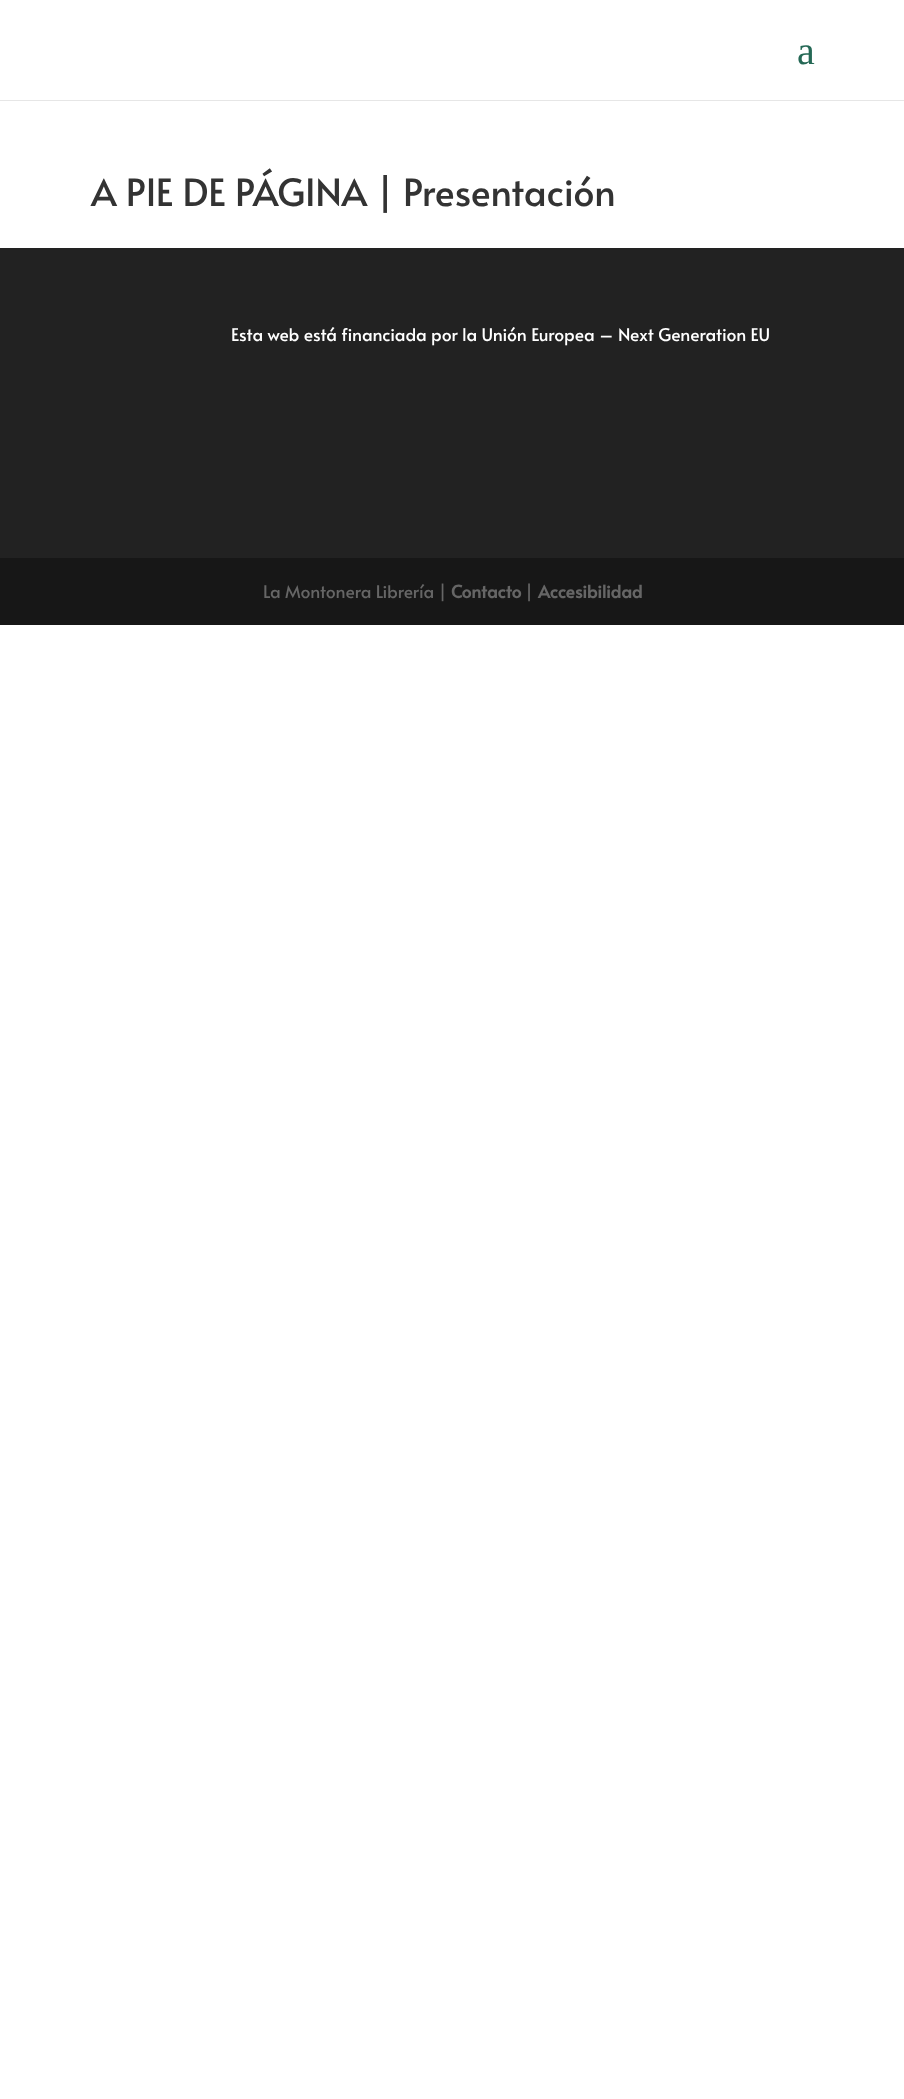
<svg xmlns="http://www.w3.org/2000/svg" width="904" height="2099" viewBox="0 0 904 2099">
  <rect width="100%" height="100%" fill="#fff"/>
  <path d="M0 100h904v1H0z" fill="#e6e6e6"/>
  <path d="M0 248h904v310H0z" fill="#222"/>
  <path d="M0 558h904v67H0z" fill="#171717"/>
  <text x="797" y="64" font-family="Liberation Serif" font-size="40" fill="#246855">a</text>
  <text x="91" y="206" font-family="Alata" font-size="37.5" fill="#333">A PIE DE PÁGINA | Presentación</text>
  <text x="231" y="341" font-family="Alata" font-size="17.5" fill="#fff">Esta web está financiada por la Unión Europea – Next Generation EU</text>
  <text x="263" y="598" font-family="Alata" font-size="17.5" fill="#666">La Montonera Librería |</text>
  <text x="451" y="598" font-family="Alata" font-size="17.5" font-weight="bold" fill="#666">Contacto</text>
  <text x="525" y="598" font-family="Alata" font-size="17.5" fill="#666">|</text>
  <text x="538" y="598" font-family="Alata" font-size="17.5" font-weight="bold" fill="#666">Accesibilidad</text>
</svg>
